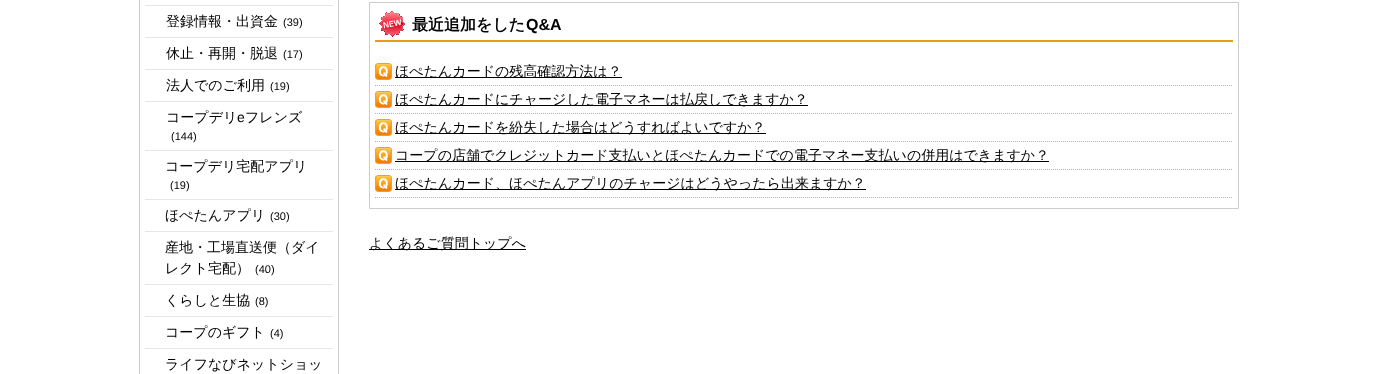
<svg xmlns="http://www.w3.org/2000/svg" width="1378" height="374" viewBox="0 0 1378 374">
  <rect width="100%" height="100%" fill="#fff"/>
  <path d="M139.5 -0.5h199v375H139.5z" fill="none" stroke="#ccc"/>
  <path d="M145 5h188v1H145z" fill="#e6e6e6"/>
  <path d="M145 37h188v1H145z" fill="#e6e6e6"/>
  <path d="M145 69h188v1H145z" fill="#e6e6e6"/>
  <path d="M145 101h188v1H145z" fill="#e6e6e6"/>
  <path d="M145 150h188v1H145z" fill="#e6e6e6"/>
  <path d="M145 199h188v1H145z" fill="#e6e6e6"/>
  <path d="M145 231h188v1H145z" fill="#e6e6e6"/>
  <path d="M145 284h188v1H145z" fill="#e6e6e6"/>
  <path d="M145 316h188v1H145z" fill="#e6e6e6"/>
  <path d="M145 348h188v1H145z" fill="#e6e6e6"/>
  <path d="M369.5 2.5h869v206H369.5z" fill="none" stroke="#ccc"/>
  <path d="M375 40h858v2H375z" fill="#e99c14"/>
  <image x="379" y="11" width="26" height="26" href="img/1.png"/>
  <image x="375" y="63" width="17" height="17" href="img/2.png"/>
  <path d="M375 85.5H1233" fill="none" stroke="#b2b2b2" stroke-dasharray="1 1"/>
  <path d="M395 77h227v1H395z" fill="#000"/>
  <image x="375" y="91" width="17" height="17" href="img/2.png"/>
  <path d="M375 113.5H1233" fill="none" stroke="#b2b2b2" stroke-dasharray="1 1"/>
  <path d="M395 105h413v1H395z" fill="#000"/>
  <image x="375" y="119" width="17" height="17" href="img/2.png"/>
  <path d="M375 141.5H1233" fill="none" stroke="#b2b2b2" stroke-dasharray="1 1"/>
  <path d="M395 133h371v1H395z" fill="#000"/>
  <image x="375" y="147" width="17" height="17" href="img/2.png"/>
  <path d="M375 169.5H1233" fill="none" stroke="#b2b2b2" stroke-dasharray="1 1"/>
  <path d="M395 161h654v1H395z" fill="#000"/>
  <image x="375" y="175" width="17" height="17" href="img/2.png"/>
  <path d="M375 197.5H1233" fill="none" stroke="#b2b2b2" stroke-dasharray="1 1"/>
  <path d="M395 189h471v1H395z" fill="#000"/>
  <path d="M369 249h157v1H369z" fill="#000"/>
  <text x="166" y="26" font-family="WenQuanYi Zen Hei" font-size="14" font-weight="500" fill="#000">登録情報・出資金</text>
  <text x="283" y="26" font-family="Liberation Sans" font-size="11" fill="#000">(39)</text>
  <text x="166" y="58" font-family="WenQuanYi Zen Hei" font-size="14" font-weight="500" fill="#000">休止・再開・脱退</text>
  <text x="283" y="58" font-family="Liberation Sans" font-size="11" fill="#000">(17)</text>
  <text x="166" y="90" font-family="WenQuanYi Zen Hei" font-size="14" font-weight="500" fill="#000">法人でのご利用</text>
  <text x="270" y="90" font-family="Liberation Sans" font-size="11" fill="#000">(19)</text>
  <text x="166" y="122" font-family="WenQuanYi Zen Hei" font-size="14" font-weight="500" fill="#000">コープデリ</text>
  <text x="237" y="122" font-family="Liberation Sans" font-size="14" fill="#000">e</text>
  <text x="245" y="122" font-family="WenQuanYi Zen Hei" font-size="14" font-weight="500" fill="#000">フレンズ</text>
  <text x="171" y="140" font-family="Liberation Sans" font-size="11" fill="#000">(144)</text>
  <text x="165" y="171" font-family="WenQuanYi Zen Hei" font-size="14" font-weight="500" fill="#000">コープデリ宅配アプリ</text>
  <text x="170" y="189" font-family="Liberation Sans" font-size="11" fill="#000">(19)</text>
  <text x="165" y="220" font-family="WenQuanYi Zen Hei" font-size="14" font-weight="500" fill="#000">ほぺたんアプリ</text>
  <text x="270" y="220" font-family="Liberation Sans" font-size="11" fill="#000">(30)</text>
  <g font-family="WenQuanYi Zen Hei" font-size="14" font-weight="500" fill="#000">
    <text x="165" y="252">産地・工場直送便（ダイ</text>
    <text x="165" y="273">レクト宅配）</text>
  </g>
  <text x="255" y="273" font-family="Liberation Sans" font-size="11" fill="#000">(40)</text>
  <text x="165" y="305" font-family="WenQuanYi Zen Hei" font-size="14" font-weight="500" fill="#000">くらしと生協</text>
  <text x="255" y="305" font-family="Liberation Sans" font-size="11" fill="#000">(8)</text>
  <text x="165" y="337" font-family="WenQuanYi Zen Hei" font-size="14" font-weight="500" fill="#000">コープのギフト</text>
  <text x="270" y="337" font-family="Liberation Sans" font-size="11" fill="#000">(4)</text>
  <text x="165" y="369" font-family="WenQuanYi Zen Hei" font-size="14" font-weight="500" fill="#000">ライフなびネットショッ</text>
  <text x="412" y="30" font-family="WenQuanYi Zen Hei" font-size="16" font-weight="bold" fill="#000">最近追加をした</text>
  <text x="526" y="30" font-family="Liberation Sans" font-size="16" font-weight="bold" fill="#000">Q&amp;A</text>
  <g font-family="WenQuanYi Zen Hei" font-size="14" font-weight="500" fill="#000">
    <text x="395" y="76">ほぺたんカードの残高確認方法は？</text>
    <text x="395" y="104">ほぺたんカードにチャージした電子マネーは払戻しできますか？</text>
    <text x="395" y="132">ほぺたんカードを紛失した場合はどうすればよいですか？</text>
    <text x="395" y="160">コープの店舗でクレジットカード支払いとほぺたんカードでの電子マネー支払いの併用はできますか？</text>
    <text x="395" y="188">ほぺたんカード、ほぺたんアプリのチャージはどうやったら出来ますか？</text>
    <text x="369" y="248">よくあるご質問トップへ</text>
  </g>
</svg>
